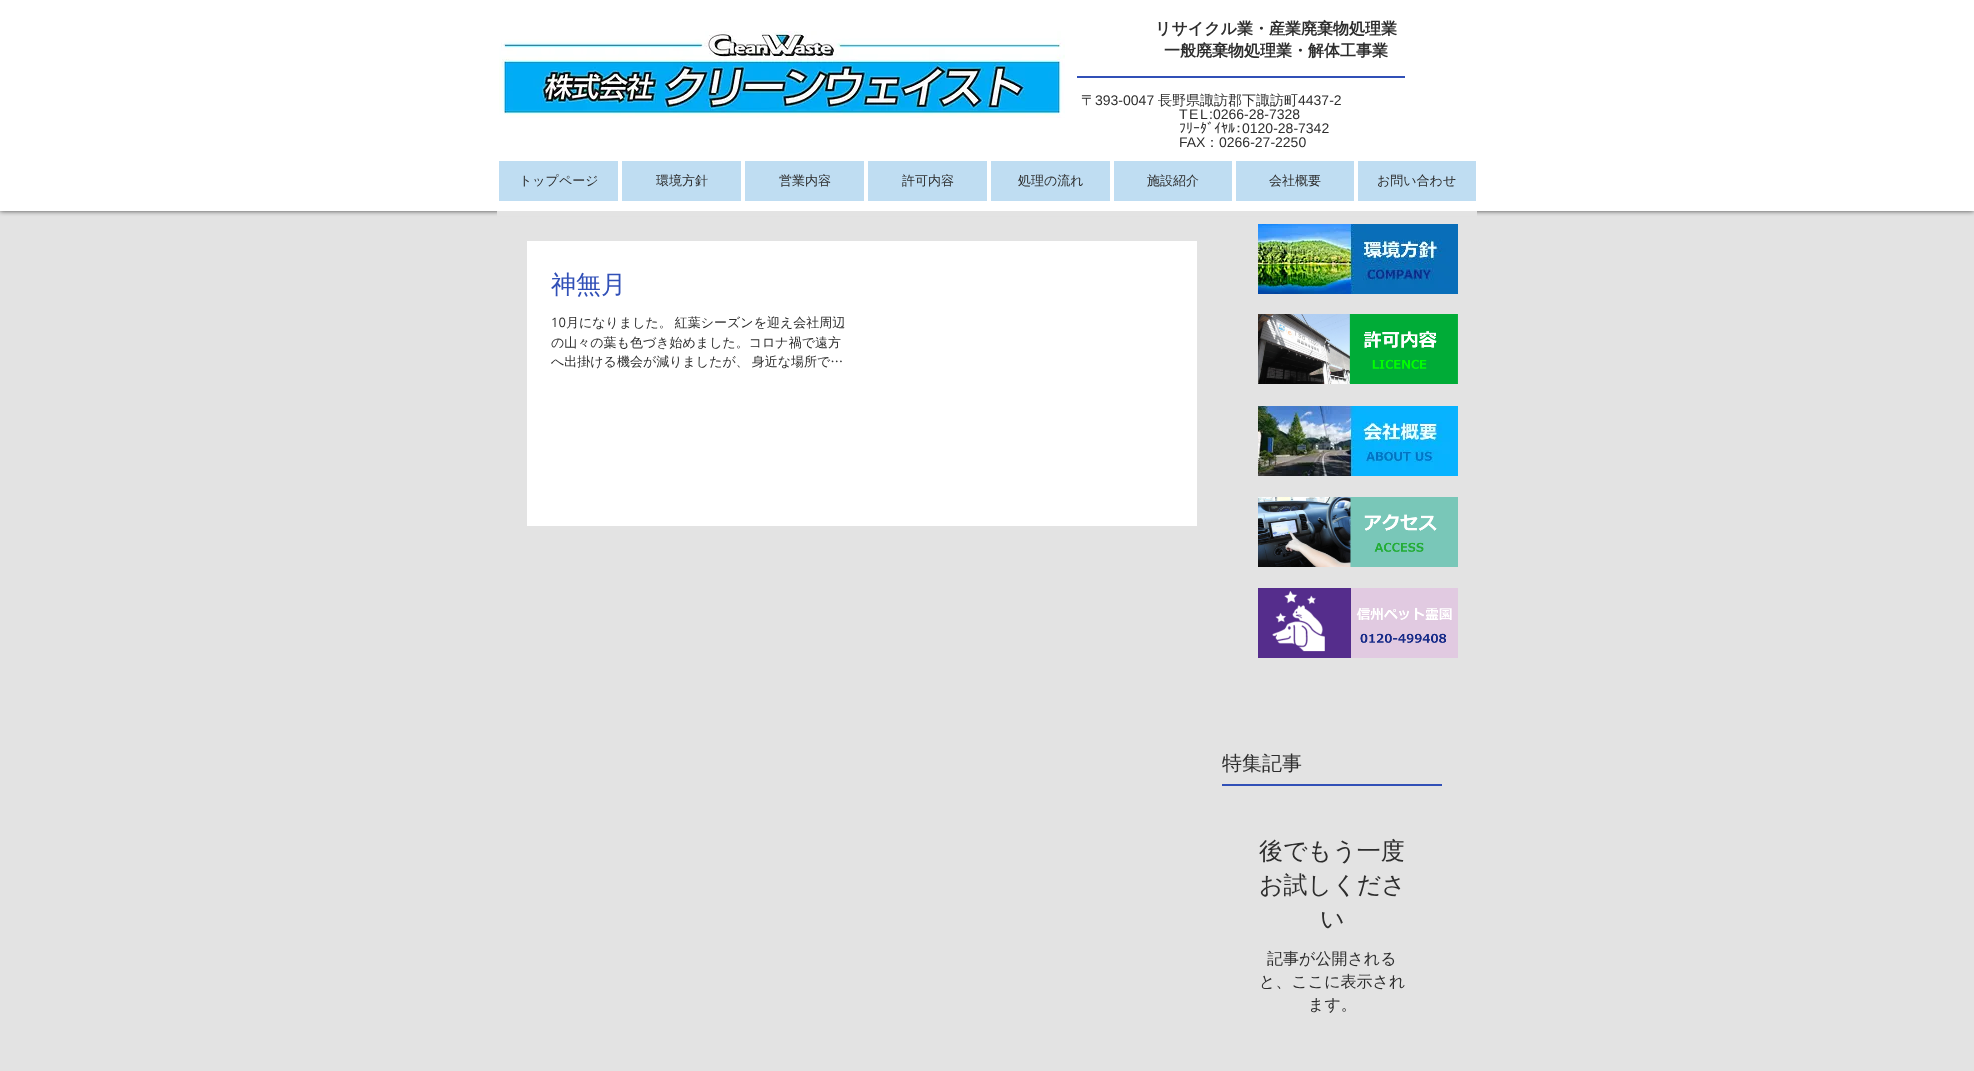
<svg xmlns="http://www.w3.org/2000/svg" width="1974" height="1071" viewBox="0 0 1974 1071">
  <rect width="100%" height="100%" fill="#e3e3e3"/>
  <path d="M0 0h1974v211H0z" fill="#000000b3" filter="blur(2.5px)"/>
  <path d="M0 0h1974v211H0z" fill="#fff"/>
  <image x="499" y="31" width="566" height="87" href="img/1.png"/>
  <path d="M1077 76h328v2H1077z" fill="#3150b7"/>
  <path d="M499 161h119v40H499z" fill="#bfddf2"/>
  <path d="M622 161h119v40H622z" fill="#bfddf2"/>
  <path d="M745 161h119v40H745z" fill="#bfddf2"/>
  <path d="M868 161h119v40H868z" fill="#bfddf2"/>
  <path d="M991 161h119v40H991z" fill="#bfddf2"/>
  <path d="M1114 161h118v40H1114z" fill="#bfddf2"/>
  <path d="M1236 161h118v40H1236z" fill="#bfddf2"/>
  <path d="M1358 161h118v40H1358z" fill="#bfddf2"/>
  <image x="1258" y="224" width="200" height="70" href="img/2.png"/>
  <image x="1258" y="314" width="200" height="70" href="img/3.png"/>
  <image x="1258" y="406" width="200" height="70" href="img/4.png"/>
  <image x="1258" y="497" width="200" height="70" href="img/5.png"/>
  <image x="1258" y="588" width="200" height="70" href="img/6.png"/>
  <path d="M497 211h980v5H497z" fill="#e3e3e3"/>
  <path d="M527 241h670v285H527z" fill="#fff"/>
  <path d="M1222 784h220v2H1222z" fill="#3150b7"/>
  <g font-family="WenQuanYi Zen Hei" font-size="16" font-weight="bold" fill="#2d2d2d">
    <text x="1155" y="34">リサイクル業・産業廃棄物処理業</text>
    <text x="1164" y="56">一般廃棄物処理業・解体工事業</text>
  </g>
  <text x="1081" y="105" font-family="WenQuanYi Zen Hei" font-size="14" font-weight="500" fill="#2d2d2d">〒</text>
  <text x="1095" y="105" font-family="Liberation Sans" font-size="14" fill="#2d2d2d">393-0047</text>
  <text x="1158" y="105" font-family="WenQuanYi Zen Hei" font-size="14" font-weight="500" fill="#2d2d2d">長野県諏訪郡下諏訪町</text>
  <text x="1298" y="105" font-family="Liberation Sans" font-size="14" fill="#2d2d2d">4437-2</text>
  <text x="1179" y="119" font-family="Liberation Sans" font-size="14" letter-spacing="1.5" fill="#2d2d2d">TEL</text>
  <text x="1209" y="119" font-family="Liberation Sans" font-size="14" fill="#2d2d2d">:0266-28-7328</text>
  <text x="1179" y="133" font-family="IPAPGothic" font-size="14" fill="#2d2d2d">ﾌﾘｰﾀﾞｲﾔﾙ：</text>
  <g font-family="Liberation Sans" font-size="14" fill="#2d2d2d">
    <text x="1242" y="133">0120-28-7342</text>
    <text x="1179" y="147">FAX</text>
  </g>
  <text x="1205" y="147" font-family="WenQuanYi Zen Hei" font-size="14" font-weight="500" fill="#2d2d2d">：</text>
  <text x="1219" y="147" font-family="Liberation Sans" font-size="14" fill="#2d2d2d">0266-27-2250</text>
  <g font-family="WenQuanYi Zen Hei" font-size="13" font-weight="500" fill="#2d2d2d">
    <text x="519" y="185">トップページ</text>
    <text x="656" y="185">環境方針</text>
    <text x="779" y="185">営業内容</text>
    <text x="902" y="185">許可内容</text>
    <text x="1018" y="185">処理の流れ</text>
    <text x="1147" y="185">施設紹介</text>
    <text x="1269" y="185">会社概要</text>
    <text x="1377" y="185">お問い合わせ</text>
  </g>
  <text x="551" y="293" font-family="WenQuanYi Zen Hei" font-size="25" font-weight="500" fill="#3150b7">神無月</text>
  <text x="551" y="327" font-family="Open Sans" font-size="13" fill="#2d2d2d">10</text>
  <g font-family="WenQuanYi Zen Hei" font-size="13" font-weight="500" fill="#2d2d2d">
    <text x="566" y="327" word-spacing="-1">月になりました。 紅葉シーズンを迎え会社周辺</text>
    <text x="551" y="347">の山々の葉も色づき始めました。コロナ禍で遠方</text>
    <text x="551" y="366" word-spacing="-1">へ出掛ける機会が減りましたが、 身近な場所で…</text>
  </g>
  <text x="1222" y="770" font-family="WenQuanYi Zen Hei" font-size="20" font-weight="500" fill="#2d2d2d">特集記事</text>
  <g font-family="WenQuanYi Zen Hei" font-size="24" font-weight="500" fill="#2d2d2d">
    <text x="1259" y="859">後でもう一度</text>
    <text x="1259" y="893">お試しくださ</text>
    <text x="1320" y="927">い</text>
  </g>
  <g font-family="WenQuanYi Zen Hei" font-size="16" font-weight="500" fill="#2d2d2d">
    <text x="1267" y="964">記事が公開される</text>
    <text x="1259" y="987">と、ここに表示され</text>
    <text x="1308" y="1010">ます。</text>
  </g>
</svg>
